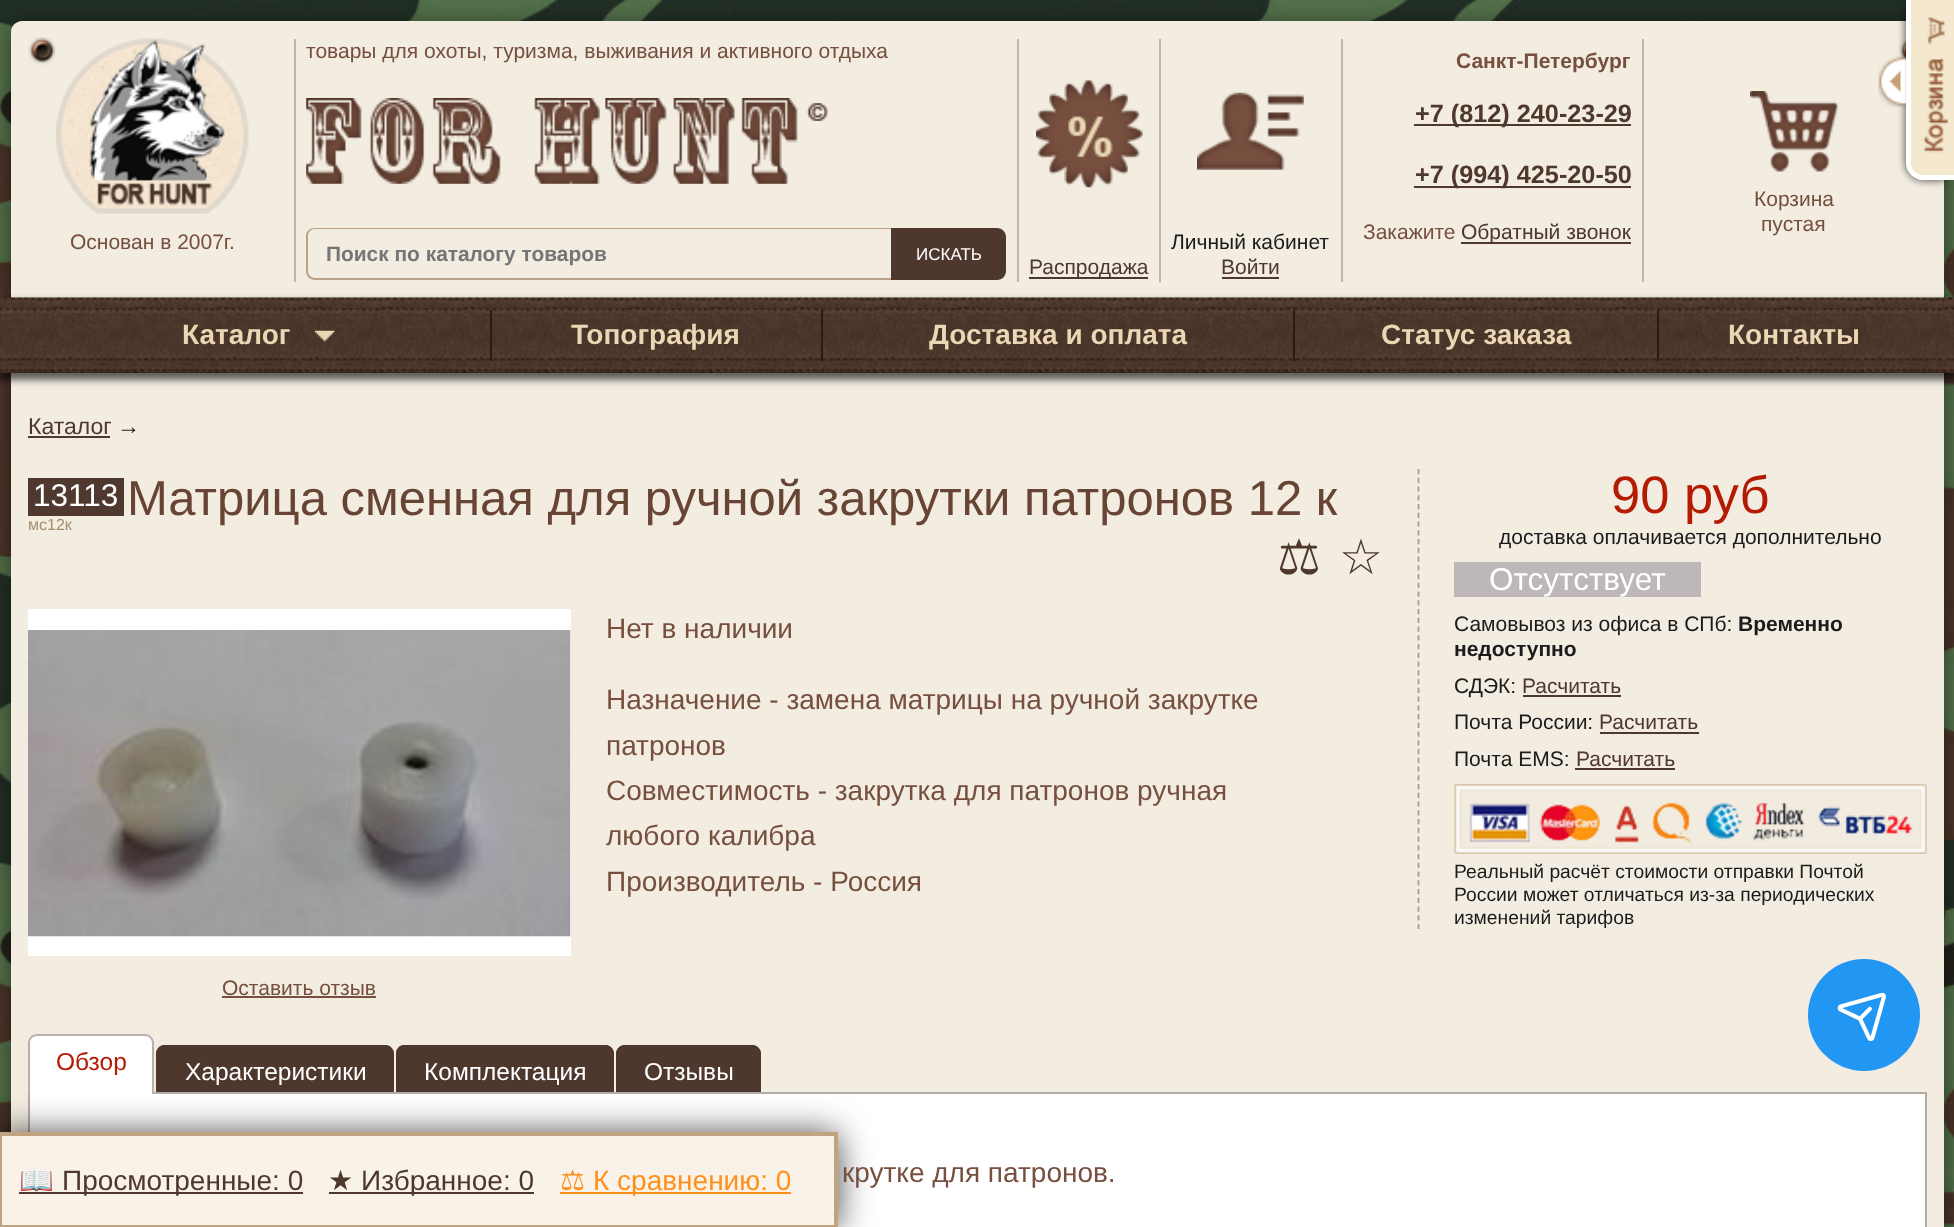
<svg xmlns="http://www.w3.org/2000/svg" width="1954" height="1227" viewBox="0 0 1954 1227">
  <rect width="100%" height="100%" fill="#fff"/>
  <image x="0" y="0" width="1954" height="1227" href="img/1.png"/>
  <rect x="11" y="25" width="1933" height="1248" rx="11" fill="#00000080" filter="blur(11.5px)"/>
  <path d="M22 21H1933C1939 21 1944 26 1944 32V298H11V32C11 26 16 21 22 21Z" fill="#f2ece1"/>
  <image x="28" y="37" width="28" height="28" href="img/2.png"/>
  <image x="1899" y="38" width="7" height="25" href="img/3.png"/>
  <path d="M294 39h2v243H294z" fill="#c6b4a1"/>
  <image x="306" y="98" width="492" height="86" href="img/4.png"/>
  <image x="806" y="103" width="22" height="18" href="img/5.png"/>
  <path d="M315 228H891V280H315C310 280 306 276 306 271V236C306 231 310 228 315 228ZM315 229H891V278H315C311 278 308 275 308 271V236C308 232 311 229 315 229Z" fill="#b9a087" fill-rule="evenodd"/>
  <path d="M891 228H997C1002 228 1006 232 1006 237V271C1006 276 1002 280 997 280H891Z" fill="#4e372d"/>
  <path d="M1341 39h2v243H1341z" fill="#c6b4a1"/>
  <path d="M1414 124h217v2H1414z" fill="#4e372d"/>
  <path d="M1414 186h217v2H1414z" fill="#4e372d"/>
  <path d="M1461 242h170v2H1461z" fill="#4e372d"/>
  <image x="1750" y="91" width="88" height="81" href="img/6.png"/>
  <path d="M1642 39h2v243H1642z" fill="#c6b4a1"/>
  <image x="56" y="38" width="193" height="176" href="img/7.png"/>
  <image x="1197" y="92" width="107" height="78" href="img/8.png"/>
  <path d="M1159 39h2v243H1159z" fill="#c6b4a1"/>
  <path d="M1222 277h57v2H1222z" fill="#4e372d"/>
  <image x="1036" y="80" width="107" height="108" href="img/9.png"/>
  <path d="M1017 39h2v243H1017z" fill="#c6b4a1"/>
  <path d="M1029 277h119v2H1029z" fill="#4e372d"/>
  <path d="M11 373h1933v854H11z" fill="#f2ece1"/>
  <path d="M-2 301h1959v79H-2z" fill="#00000099" filter="blur(3.5px)"/>
  <image x="0" y="297" width="1954" height="76" href="img/10.png"/>
  <image x="315" y="330" width="20" height="12" href="img/11.png"/>
  <path d="M490 310h2v51H490z" fill="#281c16"/>
  <path d="M821 310h2v51H821z" fill="#281c16"/>
  <path d="M1293 310h2v51H1293z" fill="#281c16"/>
  <path d="M1657 310h2v51H1657z" fill="#281c16"/>
  <rect x="1906" width="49" height="180" rx="18" fill="#000000bf" filter="blur(4.5px)"/>
  <path d="M1906 0H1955V180H1924C1914 180 1906 172 1906 162Z" fill="#f4e8cf"/>
  <image x="1923" y="17" width="25" height="136" href="img/12.png"/>
  <path d="M1906 0H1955V180H1923C1914 180 1906 172 1906 163ZM1911 0H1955V175H1923C1916 175 1911 170 1911 163Z" fill="#fff" fill-rule="evenodd"/>
  <image x="1878" y="56" width="28" height="51" href="img/13.png"/>
  <path d="M28 436h82v2H28z" fill="#4e372d"/>
  <path d="M28 478h96v38H28z" fill="#4f382e"/>
  <path d="M28 609h543v347H28z" fill="#fff"/>
  <image x="28" y="630" width="543" height="307" href="img/14.png"/>
  <path d="M222 996h154v2H222z" fill="#774f3f"/>
  <path d="M1418.5 469V929" fill="none" stroke="#b29a86" stroke-width="1.8" stroke-dasharray="5.25 3.5"/>
  <path d="M1454 562h247v35H1454z" fill="#bdb8b7"/>
  <path d="M1523 695h98v2H1523z" fill="#4e372d"/>
  <path d="M1600 732h99v2H1600z" fill="#4e372d"/>
  <path d="M1575 768h100v2H1575z" fill="#4e372d"/>
  <image x="1454" y="784" width="473" height="70" href="img/15.png"/>
  <path d="M165 1045H385C390 1045 394 1049 394 1054V1094H156V1054C156 1049 160 1045 165 1045Z" fill="#4e372d"/>
  <path d="M164 1045H385C390 1045 394 1049 394 1054V1094H156V1054C156 1049 160 1045 164 1045ZM164 1046H385C389 1046 392 1050 392 1054V1094H158V1054C158 1050 161 1046 164 1046Z" fill="#4e372d" fill-rule="evenodd"/>
  <path d="M405 1045H605C610 1045 614 1049 614 1054V1094H396V1054C396 1049 400 1045 405 1045Z" fill="#4e372d"/>
  <path d="M404 1045H606C610 1045 614 1049 614 1054V1094H396V1054C396 1049 399 1045 404 1045ZM404 1046H606C609 1046 612 1050 612 1054V1094H397V1054C397 1050 400 1046 404 1046Z" fill="#4e372d" fill-rule="evenodd"/>
  <path d="M625 1045H752C757 1045 761 1049 761 1054V1094H616V1054C616 1049 620 1045 625 1045Z" fill="#4e372d"/>
  <path d="M625 1045H752C757 1045 761 1049 761 1054V1094H616V1054C616 1049 620 1045 625 1045ZM625 1046H752C756 1046 760 1050 760 1054V1094H618V1054C618 1050 621 1046 625 1046Z" fill="#4e372d" fill-rule="evenodd"/>
  <path d="M29 1093h1897v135H29z" fill="#fff" stroke="#b4aaa6" stroke-width="2"/>
  <path d="M37 1034H145C150 1034 154 1038 154 1043V1094H28V1043C28 1038 32 1034 37 1034Z" fill="#fff"/>
  <path d="M37 1034H145C150 1034 154 1038 154 1043V1094H28V1043C28 1038 32 1034 37 1034ZM37 1036H145C149 1036 152 1039 152 1043V1094H30V1043C30 1039 33 1036 37 1036Z" fill="#bab0aa" fill-rule="evenodd"/>
  <path d="M-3 1134h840v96H-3z" fill="#000000bf" filter="blur(17.5px)"/>
  <path d="M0 1134h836v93H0z" fill="#f8f2e8" stroke="#c1a37f" stroke-width="4"/>
  <path d="M19 1192h284v2H19z" fill="#4e372d"/>
  <path d="M329 1192h205v2H329z" fill="#4e372d"/>
  <path d="M560 1192h231v2H560z" fill="#ff901c"/>
  <circle cx="1864" cy="1015" r="56" fill="#2196f3"/>
  <image x="1837" y="992" width="49" height="50" href="img/16.png"/>
  <text x="306" y="58" font-family="Liberation Sans" font-size="21" fill="#774f3f">товары для охоты, туризма, выживания и активного отдыха</text>
  <text x="326" y="261" font-family="Liberation Sans" font-size="20.9" font-weight="bold" fill="#757575">Поиск по каталогу товаров</text>
  <text x="916" y="260" font-family="Liberation Sans" font-size="17" fill="#fff">ИСКАТЬ</text>
  <text x="1456" y="68" font-family="Liberation Sans" font-size="21" font-weight="bold" fill="#774f3f">Санкт-Петербург</text>
  <g font-family="Liberation Sans" font-size="25.25" font-weight="bold" fill="#4e372d">
    <text x="1415" y="122">+7 (812) 240-23-29</text>
    <text x="1415" y="183">+7 (994) 425-20-50</text>
  </g>
  <text x="1363" y="239" font-family="Liberation Sans" font-size="21" fill="#774f3f">Закажите</text>
  <text x="1461" y="239" font-family="Liberation Sans" font-size="21" fill="#4e372d">Обратный звонок</text>
  <g font-family="Liberation Sans" font-size="21" fill="#774f3f">
    <text x="1754" y="206">Корзина</text>
    <text x="1761" y="231">пустая</text>
    <text x="70" y="249">Основан в 2007г.</text>
  </g>
  <text x="1171" y="249" font-family="Liberation Sans" font-size="21" fill="#1b1b1b">Личный кабинет</text>
  <g font-family="Liberation Sans" font-size="21" fill="#4e372d">
    <text x="1221" y="274">Войти</text>
    <text x="1029" y="274">Распродажа</text>
  </g>
  <g font-family="Liberation Sans" font-size="28" font-weight="bold" fill="#ebd7b4">
    <text x="182" y="344">Каталог</text>
    <text x="571" y="344">Топография</text>
    <text x="929" y="344">Доставка и оплата</text>
    <text x="1381" y="344">Статус заказа</text>
    <text x="1728" y="344">Контакты</text>
  </g>
  <text x="28" y="434" font-family="Liberation Sans" font-size="23" fill="#4e372d">Каталог</text>
  <text x="117" y="434" font-family="Liberation Sans" font-size="23" fill="#1b1b1b">→</text>
  <text x="33" y="506" font-family="Liberation Sans" font-size="31.5" fill="#fff">13113</text>
  <text x="28" y="530" font-family="Liberation Sans" font-size="16" fill="#a38f6d">мс12к</text>
  <text x="127" y="515" font-family="Liberation Sans" font-size="49" fill="#684435">Матрица сменная для ручной закрутки патронов 12 к</text>
  <g font-family="DejaVu Sans" font-size="49" fill="#4e372d">
    <text x="1277" y="574">⚖</text>
    <text x="1339" y="574">☆</text>
  </g>
  <g font-family="Liberation Sans" font-size="28" fill="#774f3f">
    <text x="606" y="638">Нет в наличии</text>
    <text x="606" y="709">Назначение - замена матрицы на ручной закрутке</text>
    <text x="606" y="755">патронов</text>
    <text x="606" y="800">Совместимость - закрутка для патронов ручная</text>
    <text x="606" y="845">любого калибра</text>
    <text x="606" y="891">Производитель - Россия</text>
  </g>
  <text x="222" y="995" font-family="Liberation Sans" font-size="21" fill="#774f3f">Оставить отзыв</text>
  <text x="1611" y="513" font-family="Liberation Sans" font-size="52.5" fill="#b41b02">90 руб</text>
  <text x="1499" y="544" font-family="Liberation Sans" font-size="21" fill="#1b1b1b">доставка оплачивается дополнительно</text>
  <text x="1489" y="590" font-family="Liberation Sans" font-size="31.5" fill="#fff">Отсутствует</text>
  <text x="1454" y="631" font-family="Liberation Sans" font-size="21" fill="#1b1b1b">Самовывоз из офиса в СПб:</text>
  <g font-family="Liberation Sans" font-size="21" font-weight="bold" fill="#1b1b1b">
    <text x="1738" y="631">Временно</text>
    <text x="1454" y="656">недоступно</text>
  </g>
  <text x="1454" y="693" font-family="Liberation Sans" font-size="21" fill="#1b1b1b">СДЭК:</text>
  <text x="1522" y="693" font-family="Liberation Sans" font-size="21" fill="#4e372d">Расчитать</text>
  <text x="1454" y="729" font-family="Liberation Sans" font-size="21" fill="#1b1b1b">Почта России:</text>
  <text x="1599" y="729" font-family="Liberation Sans" font-size="21" fill="#4e372d">Расчитать</text>
  <text x="1454" y="766" font-family="Liberation Sans" font-size="21" fill="#1b1b1b">Почта EMS:</text>
  <text x="1576" y="766" font-family="Liberation Sans" font-size="21" fill="#4e372d">Расчитать</text>
  <g font-family="Liberation Sans" font-size="19.3" fill="#1b1b1b">
    <text x="1454" y="878">Реальный расчёт стоимости отправки Почтой</text>
    <text x="1454" y="901">России может отличаться из-за периодических</text>
    <text x="1454" y="924">изменений тарифов</text>
  </g>
  <text x="56" y="1070" font-family="Liberation Sans" font-size="24.5" fill="#b41b02">Обзор</text>
  <g font-family="Liberation Sans" font-size="24.5" fill="#fff">
    <text x="185" y="1080">Характеристики</text>
    <text x="424" y="1080">Комплектация</text>
    <text x="644" y="1080">Отзывы</text>
  </g>
  <text x="842" y="1182" font-family="Liberation Sans" font-size="28" fill="#774f3f">крутке для патронов.</text>
  <text x="19" y="1190" font-family="Noto Color Emoji" font-size="28" fill="#4e372d">📖</text>
  <text x="62" y="1190" font-family="Liberation Sans" font-size="28" fill="#4e372d">Просмотренные: 0</text>
  <text x="328" y="1190" font-family="DejaVu Sans" font-size="28" fill="#4e372d">★</text>
  <text x="361" y="1190" font-family="Liberation Sans" font-size="28" fill="#4e372d">Избранное: 0</text>
  <text x="560" y="1190" font-family="DejaVu Sans" font-size="28" fill="#ff901c">⚖</text>
  <text x="593" y="1190" font-family="Liberation Sans" font-size="28" fill="#ff901c">К сравнению: 0</text>
</svg>
